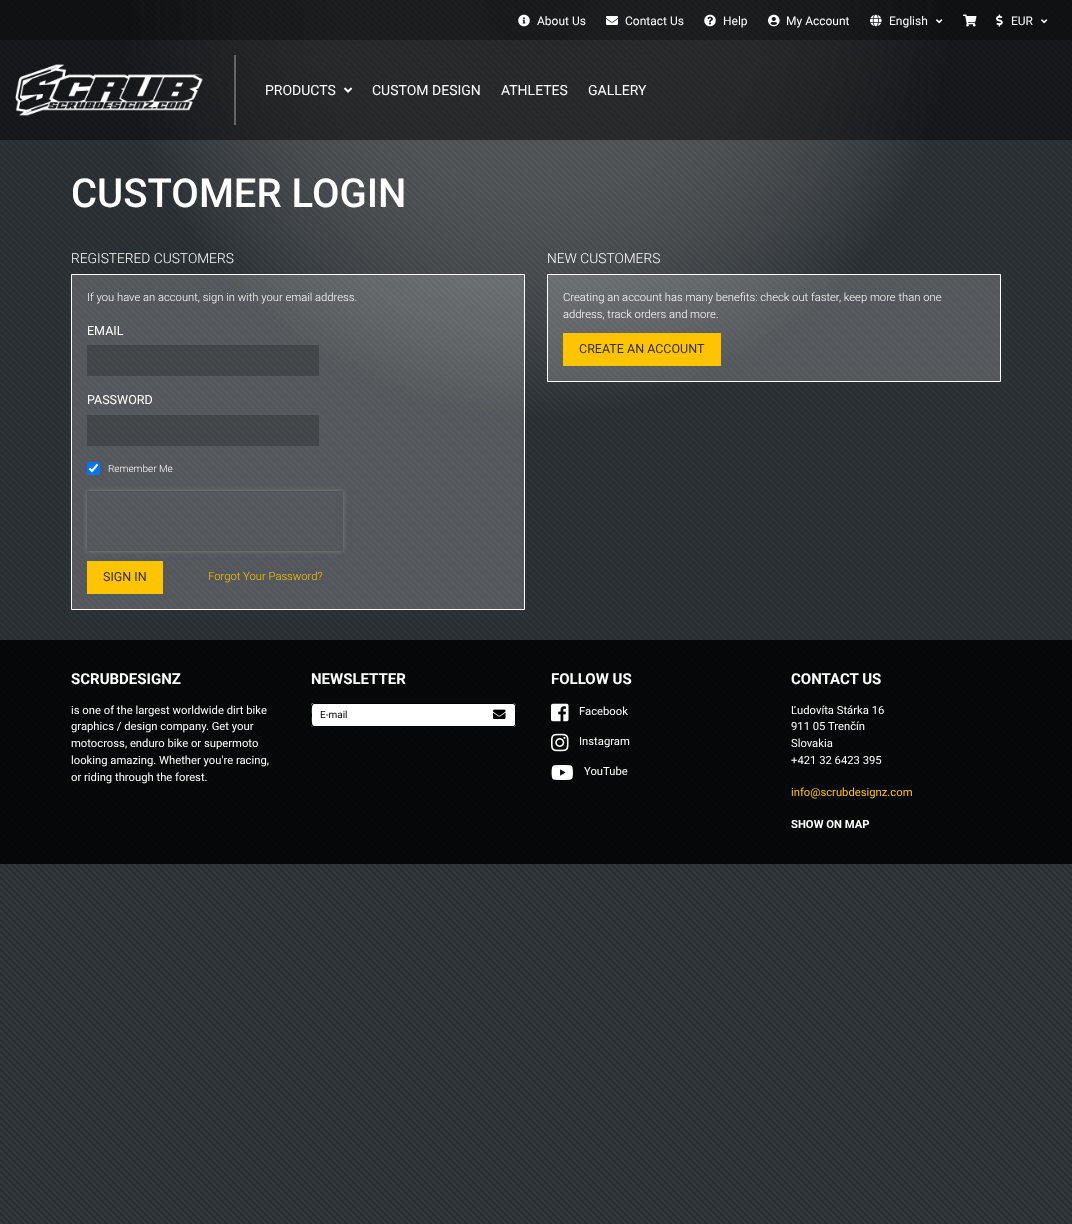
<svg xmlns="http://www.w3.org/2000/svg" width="1072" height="1224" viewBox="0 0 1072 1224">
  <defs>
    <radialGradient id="g1" gradientUnits="userSpaceOnUse" cx="536" cy="0" r="835"><stop offset="0" stop-color="#fff" stop-opacity="0.12"/><stop offset="0.5" stop-color="#292e32" stop-opacity="0.5"/></radialGradient>
    <clipPath id="clip1"><path d="M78 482H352V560H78ZM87 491H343V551H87Z" clip-rule="evenodd"/></clipPath>
  </defs>
  <rect width="100%" height="100%" fill="#292e32"/>
  <image x="0" y="0" width="1072" height="1224" href="img/1.png"/>
  <path d="M0 0h1072v640H0z" fill="url(#g1)"/>
  <path d="M0 0h1072v40H0z" fill="#000000a6"/>
  <image x="518" y="14" width="12" height="13" href="img/2.png"/>
  <image x="606" y="16" width="12" height="9" href="img/3.png"/>
  <image x="704" y="14" width="12" height="13" href="img/4.png"/>
  <image x="768" y="14" width="12" height="13" href="img/5.png"/>
  <image x="870" y="14" width="12" height="13" href="img/6.png"/>
  <image x="936" y="19" width="7" height="5" href="img/7.png"/>
  <image x="963" y="14" width="14" height="13" href="img/8.png"/>
  <image x="996" y="14" width="7" height="13" href="img/9.png"/>
  <image x="1041" y="19" width="7" height="5" href="img/10.png"/>
  <path d="M0 40h1072v100H0z" fill="#00000080"/>
  <image x="15" y="64" width="188" height="52" href="img/11.png"/>
  <path d="M234 55h2v70H234z" fill="#ffffff4d"/>
  <image x="344" y="87" width="9" height="6" href="img/12.png"/>
  <path d="M71.5 274.5h453v335H71.5z" fill="#ffffff33" stroke="#fff"/>
  <path d="M87 345h232v31H87z" fill="#00000033"/>
  <path d="M87 415h232v31H87z" fill="#00000033"/>
  <rect x="87" y="462" width="13" height="13" rx="2" fill="#0075ff"/>
  <path d="M89.5 468.5L92 471L97.5 464.5" fill="none" stroke="#fff" stroke-width="2.1"/>
  <g clip-path="url(#clip1)">
    <path d="M87 491h256v60H87z" fill="#808080" filter="blur(2.5px)"/>
  </g>
  <path d="M87 561h76v33H87z" fill="#ffc400"/>
  <path d="M547.5 274.5h453v107H547.5z" fill="#ffffff33" stroke="#fff"/>
  <path d="M563 333h158v33H563z" fill="#ffc400"/>
  <path d="M0 640h1072v224H0z" fill="#000000d9"/>
  <path d="M313.5 703H484V727H313.5C312 727 311 726 311 724.5V705.5C311 704 312 703 313.5 703Z" fill="#fff"/>
  <path d="M314 703H484V727H313C309 726 311 717 311 715C311 713 309 703 314 703ZM314 704H484V726H314C311 726 312 717 312 715C312 713 311 704 314 704Z" fill="#000" fill-rule="evenodd"/>
  <path d="M483 703H513C514.5 703 516 704.5 516 706V724C516 725.5 514.5 727 513 727H483Z" fill="#fff"/>
  <path d="M483 703H513C514.5 703 516 704.5 516 706V724C516 725.5 514.5 727 513 727H483ZM483 704H513C514 704 515 705 515 706V724C515 725 514 726 513 726H483Z" fill="#000" fill-rule="evenodd"/>
  <image x="493" y="709" width="13" height="10" href="img/13.png"/>
  <image x="551" y="703" width="18" height="19" href="img/14.png"/>
  <image x="551" y="733" width="18" height="19" href="img/15.png"/>
  <image x="551" y="765" width="22" height="15" href="img/16.png"/>
  <g font-family="Roboto" font-size="12" fill="#fff">
    <text x="537" y="25">About Us</text>
    <text x="625" y="25">Contact Us</text>
    <text x="723" y="25">Help</text>
    <text x="786" y="25">My Account</text>
    <text x="889" y="25">English</text>
    <text x="1011" y="25">EUR</text>
  </g>
  <g font-family="Roboto" font-size="14" fill="#fff">
    <text x="265" y="95">PRODUCTS</text>
    <text x="372" y="95">CUSTOM DESIGN</text>
    <text x="501" y="95">ATHLETES</text>
    <text x="588" y="95">GALLERY</text>
  </g>
  <text x="71" y="207" font-family="Roboto" font-size="40" font-weight="500" fill="#fff">CUSTOMER LOGIN</text>
  <text x="71" y="263" font-family="Roboto" font-size="13.75" font-weight="300" fill="#fff">REGISTERED CUSTOMERS</text>
  <text x="87" y="301" font-family="Roboto" font-size="11.25" font-weight="300" fill="#fff">If you have an account, sign in with your email address.</text>
  <g font-family="Roboto" font-size="12.5" fill="#fff">
    <text x="87" y="335">EMAIL</text>
    <text x="87" y="404">PASSWORD</text>
  </g>
  <text x="108" y="472" font-family="Roboto" font-size="10" font-weight="300" fill="#fff">Remember Me</text>
  <text x="103" y="581" font-family="Roboto" font-size="12.5" fill="#2e3033">SIGN IN</text>
  <text x="208" y="580" font-family="Roboto" font-size="11.25" font-weight="300" fill="#ffc400">Forgot Your Password?</text>
  <text x="547" y="263" font-family="Roboto" font-size="13.75" font-weight="300" fill="#fff">NEW CUSTOMERS</text>
  <g font-family="Roboto" font-size="11.25" font-weight="300" fill="#fff">
    <text x="563" y="301">Creating an account has many benefits: check out faster, keep more than one</text>
    <text x="563" y="318">address, track orders and more.</text>
  </g>
  <text x="579" y="353" font-family="Roboto" font-size="12.5" fill="#2e3033">CREATE AN ACCOUNT</text>
  <text x="71" y="684" font-family="Roboto" font-size="15" font-weight="bold" fill="#fff">SCRUBDESIGNZ</text>
  <g font-family="Roboto" font-size="11.25" fill="#fff">
    <text x="71" y="714">is one of the largest worldwide dirt bike</text>
    <text x="71" y="730">graphics / design company. Get your</text>
    <text x="71" y="747">motocross, enduro bike or supermoto</text>
    <text x="71" y="764">looking amazing. Whether you're racing,</text>
    <text x="71" y="781">or riding through the forest.</text>
  </g>
  <text x="311" y="684" font-family="Roboto" font-size="15" font-weight="bold" fill="#fff">NEWSLETTER</text>
  <text x="320" y="718" font-family="Roboto" font-size="10" fill="#000">E-mail</text>
  <text x="551" y="684" font-family="Roboto" font-size="15" font-weight="bold" fill="#fff">FOLLOW US</text>
  <g font-family="Roboto" font-size="11.25" fill="#fff">
    <text x="579" y="715">Facebook</text>
    <text x="579" y="745">Instagram</text>
    <text x="584" y="775">YouTube</text>
  </g>
  <text x="791" y="684" font-family="Roboto" font-size="15" font-weight="bold" fill="#fff">CONTACT US</text>
  <g font-family="Roboto" font-size="11.25" fill="#fff">
    <text x="791" y="714">Ľudovíta Stárka 16</text>
    <text x="791" y="730">911 05 Trenčín</text>
    <text x="791" y="747">Slovakia</text>
    <text x="791" y="764">+421 32 6423 395</text>
  </g>
  <text x="791" y="796" font-family="Roboto" font-size="11.25" fill="#ffc400">info@scrubdesignz.com</text>
  <text x="791" y="828" font-family="Roboto" font-size="11.25" font-weight="bold" fill="#fff">SHOW ON MAP</text>
</svg>
